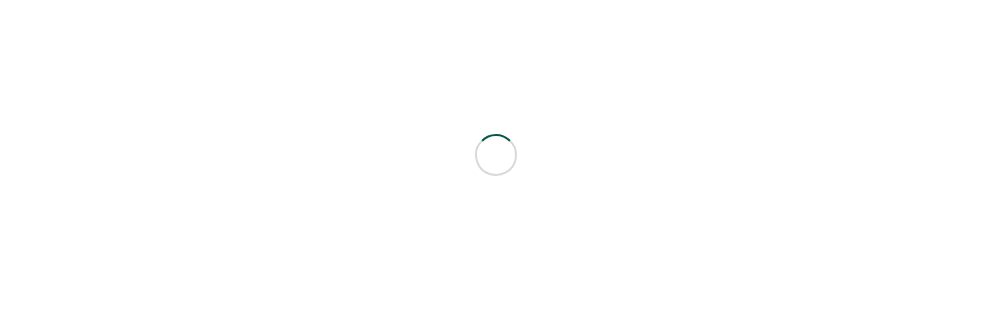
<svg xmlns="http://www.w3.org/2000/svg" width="992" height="309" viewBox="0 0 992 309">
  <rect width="100%" height="100%" fill="#fff"/>
  <path d="M482 141C489.5 133 502.5 133 510 141" fill="none" stroke="#045748" stroke-width="2"/>
  <path d="M510 141C514 144.5 516 149.5 516 155C516 179 481 182.5 476.5 159C475 152.5 477 145.5 482 141" fill="none" stroke="#d9d9d9" stroke-width="2"/>
</svg>
